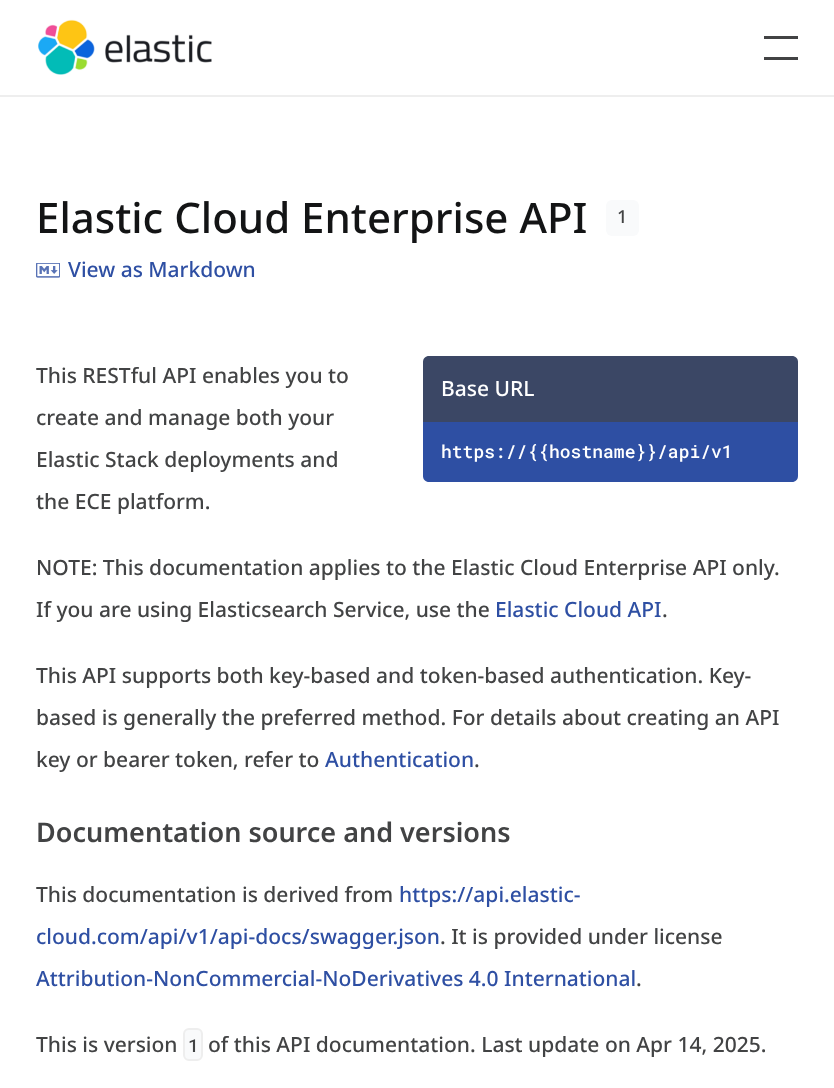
<svg xmlns="http://www.w3.org/2000/svg" width="834" height="1088" viewBox="0 0 834 1088">
  <rect width="100%" height="100%" fill="#fff"/>
  <path d="M0 95h834v2H0z" fill="#eee"/>
  <image x="38" y="19" width="174" height="56" href="img/1.png"/>
  <path d="M764 36h34v3H764z" fill="#424344"/>
  <path d="M764 57h34v3H764z" fill="#424344"/>
  <rect x="606" y="200" width="33" height="36" rx="6" fill="#f9fafb"/>
  <image x="36" y="263" width="24" height="15" href="img/2.png"/>
  <rect x="184" y="1029" width="18" height="31" rx="5" fill="#f9fafb" stroke="#eee" stroke-width="2"/>
  <path d="M429 356H792C795.5 356 798 358.5 798 362V422H423V362C423 358.5 425.5 356 429 356Z" fill="#3b4765"/>
  <path d="M423 422H798V476C798 479.5 795.5 482 792 482H429C425.5 482 423 479.5 423 476Z" fill="#2e4fa3"/>
  <text x="36" y="233" font-family="Noto Sans" font-size="42" font-weight="500" fill="#131415">Elastic Cloud Enterprise API</text>
  <text x="617" y="223" font-family="Noto Sans" font-size="18" font-weight="500" fill="#424344">1</text>
  <text x="68" y="277" font-family="Noto Sans" font-size="21" font-weight="500" fill="#2e4fa3">View as Markdown</text>
  <g font-family="Noto Sans" font-size="21" font-weight="500" fill="#424344">
    <text x="36" y="383">This RESTful API enables you to</text>
    <text x="36" y="425">create and manage both your</text>
    <text x="36" y="467">Elastic Stack deployments and</text>
    <text x="36" y="509">the ECE platform.</text>
    <text x="36" y="575">NOTE: This documentation applies to the Elastic Cloud Enterprise API only.</text>
    <text x="36" y="617">If you are using Elasticsearch Service, use the</text>
  </g>
  <text x="495" y="617" font-family="Noto Sans" font-size="21" font-weight="500" fill="#2e4fa3">Elastic Cloud API</text>
  <g font-family="Noto Sans" font-size="21" font-weight="500" fill="#424344">
    <text x="662" y="617">.</text>
    <text x="36" y="683">This API supports both key-based and token-based authentication. Key-</text>
    <text x="36" y="725">based is generally the preferred method. For details about creating an API</text>
    <text x="36" y="767">key or bearer token, refer to</text>
  </g>
  <text x="325" y="767" font-family="Noto Sans" font-size="21" font-weight="500" fill="#2e4fa3">Authentication</text>
  <text x="474" y="767" font-family="Noto Sans" font-size="21" font-weight="500" fill="#424344">.</text>
  <text x="36" y="842" font-family="Noto Sans" font-size="27" font-weight="600" fill="#424344">Documentation source and versions</text>
  <text x="36" y="902" font-family="Noto Sans" font-size="21" font-weight="500" fill="#424344">This documentation is derived from</text>
  <g font-family="Noto Sans" font-size="21" font-weight="500" fill="#2e4fa3">
    <text x="399" y="902">https://api.elastic-</text>
    <text x="36" y="944">cloud.com/api/v1/api-docs/swagger.json</text>
  </g>
  <text x="440" y="944" font-family="Noto Sans" font-size="21" font-weight="500" fill="#424344">. It is provided under license</text>
  <text x="36" y="986" font-family="Noto Sans" font-size="21" font-weight="500" fill="#2e4fa3">Attribution-NonCommercial-NoDerivatives 4.0 International</text>
  <g font-family="Noto Sans" font-size="21" font-weight="500" fill="#424344">
    <text x="636" y="986">.</text>
    <text x="36" y="1052">This is version</text>
  </g>
  <text x="188" y="1052" font-family="Roboto Mono" font-size="18" font-weight="500" fill="#424344">1</text>
  <text x="208" y="1052" font-family="Noto Sans" font-size="21" font-weight="500" fill="#424344">of this API documentation. Last update on Apr 14, 2025.</text>
  <text x="441" y="396" font-family="Noto Sans" font-size="21" font-weight="500" fill="#fff">Base URL</text>
  <text x="441" y="458" font-family="Roboto Mono" font-size="18" font-weight="500" fill="#fff">https://{{hostname}}/api/v1</text>
</svg>
